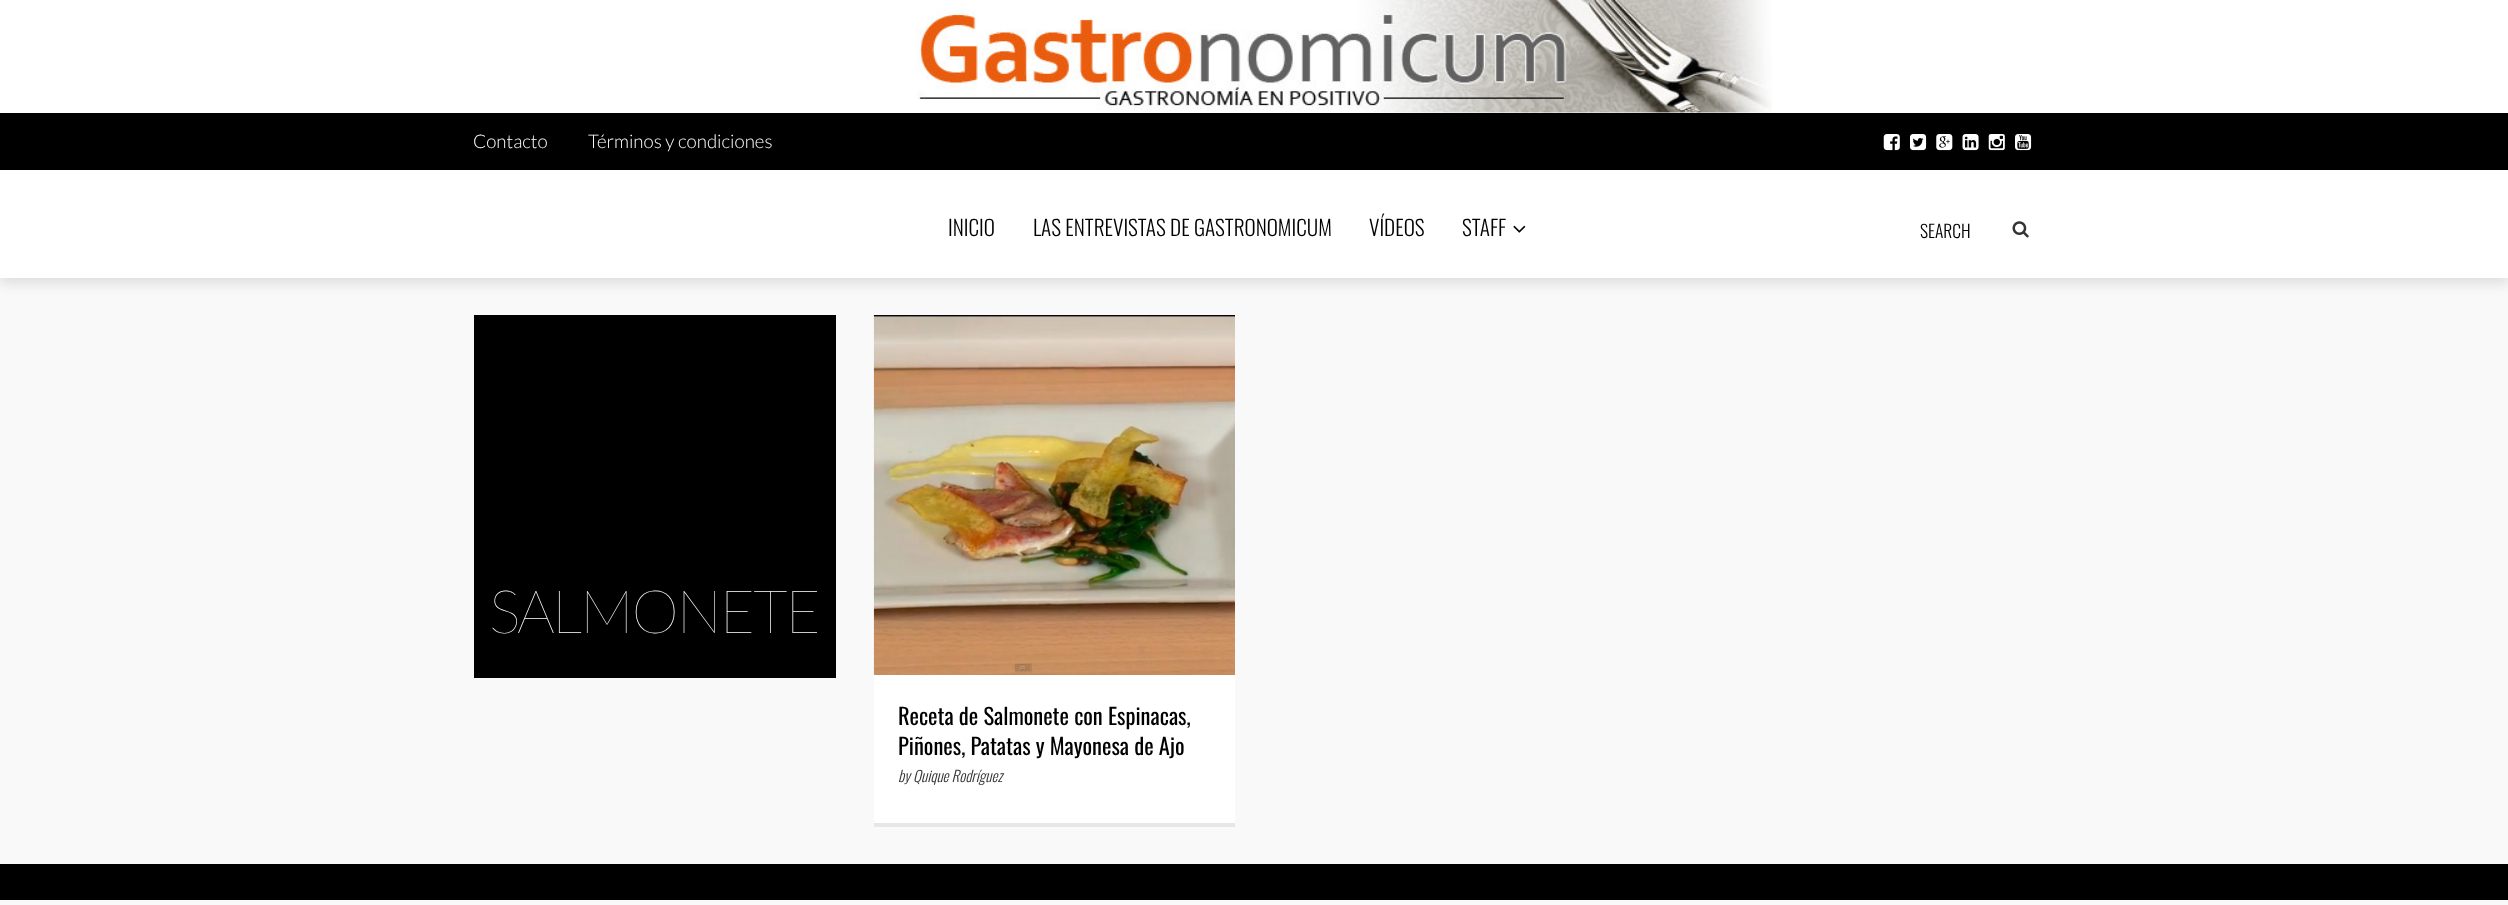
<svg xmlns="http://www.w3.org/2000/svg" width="2508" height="905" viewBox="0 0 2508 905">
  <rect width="100%" height="100%" fill="#f9f9f9"/>
  <path d="M0 0h2508v113H0z" fill="#fff"/>
  <image x="916" y="0" width="856" height="113" href="img/1.png"/>
  <path d="M0 113h2508v57H0z" fill="#000"/>
  <image x="1883" y="134" width="17" height="17" href="img/2.png"/>
  <image x="1910" y="134" width="17" height="17" href="img/3.png"/>
  <image x="1936" y="134" width="17" height="17" href="img/4.png"/>
  <image x="1962" y="134" width="17" height="17" href="img/5.png"/>
  <image x="1988" y="134" width="17" height="17" href="img/6.png"/>
  <image x="2015" y="134" width="17" height="17" href="img/7.png"/>
  <path d="M0 176h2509v108H0z" fill="#0000001a" filter="blur(6px)"/>
  <path d="M0 170h2508v108H0z" fill="#fff"/>
  <image x="1513" y="225" width="13" height="8" href="img/8.png"/>
  <image x="2012" y="221" width="17" height="17" href="img/9.png"/>
  <path d="M474 315h362v363H474z" fill="#000"/>
  <image x="873" y="315" width="362" height="360" href="img/10.png"/>
  <path d="M874 675h361v148H874z" fill="#fff"/>
  <path d="M874 823h361v4H874z" fill="#e7e7e7"/>
  <path d="M0 864h2508v36H0z" fill="#000"/>
  <g font-family="Lato" font-size="18.75" font-weight="300" fill="#fff">
    <text x="473" y="148">Contacto</text>
    <text x="588" y="148">Términos y condiciones</text>
  </g>
  <g font-family="Oswald" font-size="21.25" font-weight="300" fill="#000">
    <text x="948" y="236">INICIO</text>
    <text x="1033" y="236">LAS ENTREVISTAS DE GASTRONOMICUM</text>
    <text x="1369" y="236">VÍDEOS</text>
    <text x="1462" y="236">STAFF</text>
  </g>
  <text x="1920" y="238" font-family="Oswald" font-size="17.5" font-weight="300" fill="#000">SEARCH</text>
  <text x="489" y="633" font-family="Lato" font-size="60" font-weight="100" letter-spacing="-2.5" fill="#fff">SALMONETE</text>
  <g font-family="Oswald" font-size="22.5" fill="#000">
    <text x="898" y="725">Receta de Salmonete con Espinacas,</text>
    <text x="898" y="755">Piñones, Patatas y Mayonesa de Ajo</text>
  </g>
  <text x="898" y="782" font-family="Oswald" font-size="15" font-weight="300" font-style="italic" fill="#333">by Quique Rodríguez</text>
</svg>
